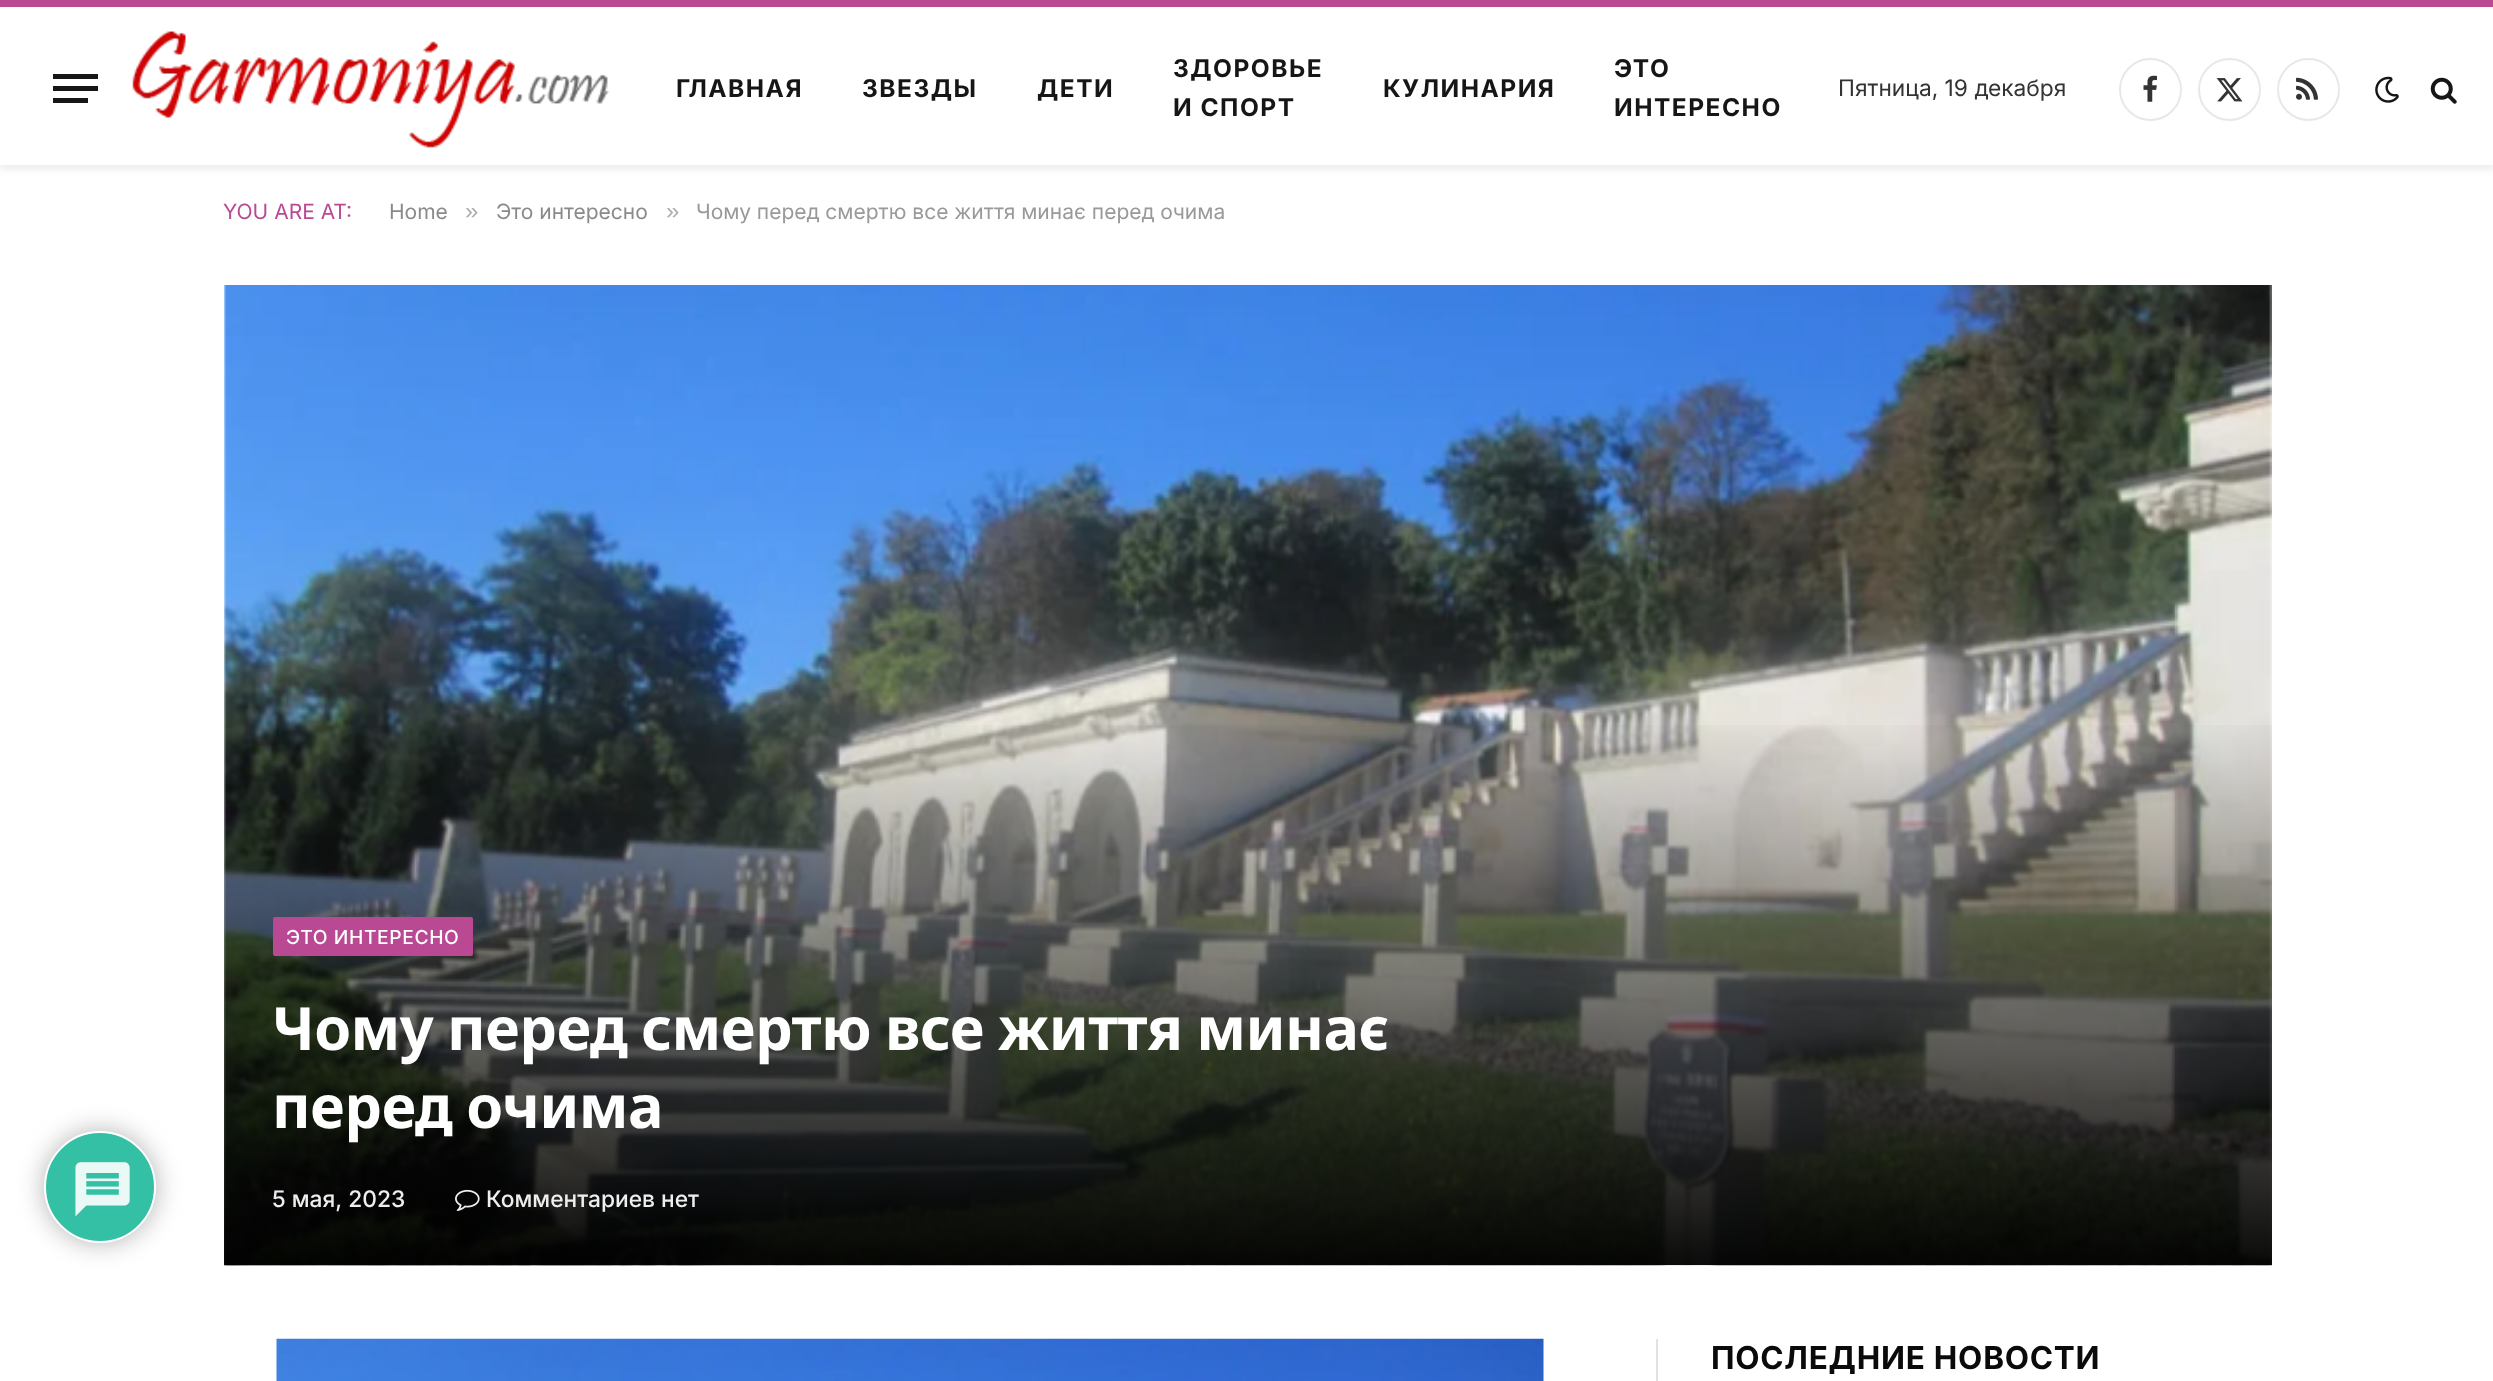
<svg xmlns="http://www.w3.org/2000/svg" width="2493" height="1381" viewBox="0 0 2493 1381">
  <defs>
    <clipPath id="clip1"><path d="M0 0H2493V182H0ZM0 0H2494V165H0Z" clip-rule="evenodd"/></clipPath>
    <linearGradient id="g1" gradientUnits="userSpaceOnUse" x1="1248" y1="712" x2="1248" y2="1265"><stop offset="0" stop-color="#000" stop-opacity="0"/><stop offset="1" stop-color="#000" stop-opacity="0.95"/></linearGradient>
  </defs>
  <rect width="100%" height="100%" fill="#fff"/>
  <rect x="44" y="1131" width="112" height="112" rx="56" fill="#b3b3b3" filter="blur(13px)"/>
  <circle cx="100" cy="1187" r="55" fill="#34c0a4" stroke="#fff" stroke-width="2"/>
  <image x="75" y="1162" width="55" height="55" href="img/1.png"/>
  <g clip-path="url(#clip1)">
    <path d="M0 5h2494v165H0z" fill="#00000012" filter="blur(3.5px)"/>
  </g>
  <path d="M0 0h2493v7H0z" fill="#ba4994"/>
  <path d="M53 98h35v5H53z" fill="#161616"/>
  <path d="M53 74h45v5H53z" fill="#161616"/>
  <path d="M53 86h45v5H53z" fill="#161616"/>
  <image x="132" y="31" width="478" height="117" href="img/2.png"/>
  <circle cx="2150.5" cy="89.5" r="30.5" fill="none" stroke="#e8e8e8" stroke-width="2"/>
  <image x="2143" y="75" width="14" height="27" href="img/3.png"/>
  <circle cx="2229.5" cy="89.5" r="30.5" fill="none" stroke="#e8e8e8" stroke-width="2"/>
  <image x="2216" y="78" width="27" height="24" href="img/4.png"/>
  <circle cx="2308.5" cy="89.5" r="30.5" fill="none" stroke="#e8e8e8" stroke-width="2"/>
  <image x="2296" y="77" width="22" height="23" href="img/5.png"/>
  <image x="2375" y="76" width="24" height="27" href="img/6.png"/>
  <image x="2430" y="77" width="27" height="27" href="img/7.png"/>
  <image x="224" y="285" width="2048" height="981" href="img/8.png"/>
  <path d="M224 725h2048v540H224z" fill="url(#g1)"/>
  <rect x="273" y="917" width="200" height="39" rx="2" fill="#ba4994"/>
  <image x="455" y="1189" width="25" height="22" href="img/9.png"/>
  <image x="276" y="1338" width="1268" height="43" href="img/10.png"/>
  <path d="M1656 1339h2v42H1656z" fill="#e2e2e2"/>
  <g font-family="Inter" font-size="24.5" font-weight="bold" letter-spacing="1.5" fill="#161616">
    <text x="676" y="97">ГЛАВНАЯ</text>
    <text x="862" y="97">ЗВЕЗДЫ</text>
    <text x="1037" y="97">ДЕТИ</text>
    <text x="1173" y="77">ЗДОРОВЬЕ</text>
    <text x="1173" y="116">И СПОРТ</text>
    <text x="1383" y="97">КУЛИНАРИЯ</text>
    <text x="1614" y="77">ЭТО</text>
    <text x="1614" y="116">ИНТЕРЕСНО</text>
  </g>
  <text x="1838" y="96" font-family="Inter" font-size="22.75" fill="#333">Пятница, 19 декабря</text>
  <text x="223" y="219" font-family="Inter" font-size="21" fill="#ba4994">YOU ARE AT:</text>
  <text x="389" y="219" font-family="Inter" font-size="21" fill="#8a8a8a">Home</text>
  <text x="465" y="219" font-family="Liberation Sans" font-size="24" fill="#adadad">»</text>
  <text x="496" y="219" font-family="Inter" font-size="21" fill="#8a8a8a">Это интересно</text>
  <text x="666" y="219" font-family="Liberation Sans" font-size="24" fill="#adadad">»</text>
  <text x="696" y="219" font-family="Inter" font-size="21" fill="#999">Чому перед смертю все життя минає перед очима</text>
  <text x="286" y="944" font-family="Inter" font-size="19.25" font-weight="500" letter-spacing="0.6" fill="#fff">ЭТО ИНТЕРЕСНО</text>
  <g font-family="Noto Sans" font-size="59.5" font-weight="bold" letter-spacing="-0.6" fill="#fff">
    <text x="272" y="1050" word-spacing="-1">Чому перед смертю все життя минає</text>
    <text x="272" y="1128" word-spacing="-1">перед очима</text>
  </g>
  <g font-family="Inter" font-size="22.75" font-weight="500" fill="#eee">
    <text x="272" y="1207">5 мая, 2023</text>
    <text x="486" y="1207">Комментариев нет</text>
  </g>
  <text x="1711" y="1369" font-family="Inter" font-size="31.5" font-weight="bold" letter-spacing="0.75" fill="#0a0a0a">ПОСЛЕДНИЕ НОВОСТИ</text>
</svg>
